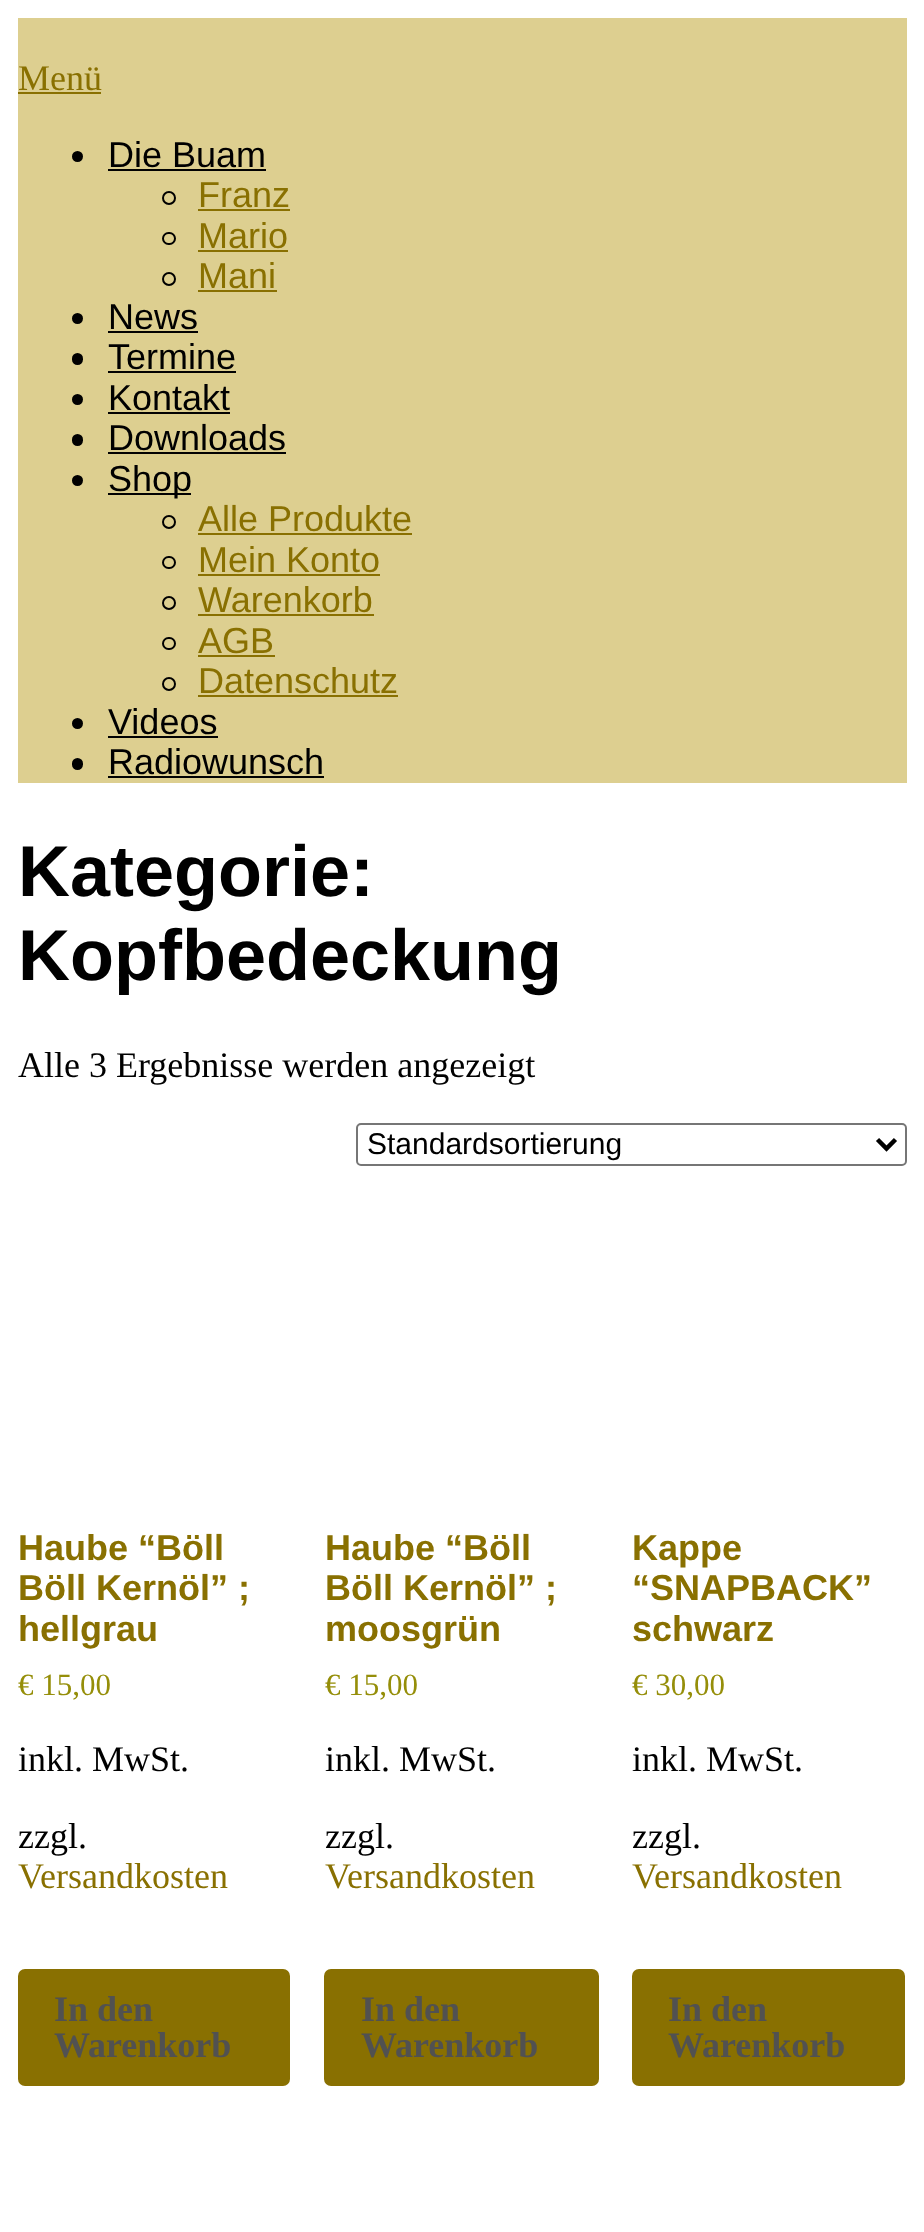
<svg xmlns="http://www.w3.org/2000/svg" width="924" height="2232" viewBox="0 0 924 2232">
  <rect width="100%" height="100%" fill="#fff"/>
  <path d="M18 18h889v765H18z" fill="#ddcf90"/>
  <path d="M18 92h83v2H18z" fill="#897001"/>
  <circle cx="77.5" cy="156.5" r="5.5" fill="#000"/>
  <path d="M108 169h158v2H108z" fill="#020202"/>
  <circle cx="169" cy="198" r="6" fill="none" stroke="#000" stroke-width="2"/>
  <path d="M198 209h92v2H198z" fill="#897001"/>
  <rect x="163" y="233" width="12" height="11" rx="5.5" fill="none" stroke="#000" stroke-width="2"/>
  <path d="M198 250h90v2H198z" fill="#897001"/>
  <circle cx="169" cy="279" r="6" fill="none" stroke="#000" stroke-width="2"/>
  <path d="M198 290h79v2H198z" fill="#897001"/>
  <circle cx="77.5" cy="318.5" r="5.5" fill="#000"/>
  <path d="M108 331h90v2H108z" fill="#020202"/>
  <rect x="72" y="353" width="11" height="12" rx="5.5" fill="#000"/>
  <path d="M108 371h128v2H108z" fill="#020202"/>
  <circle cx="77.5" cy="399.5" r="5.5" fill="#000"/>
  <path d="M108 412h122v2H108z" fill="#020202"/>
  <rect x="72" y="434" width="11" height="12" rx="5.5" fill="#000"/>
  <path d="M108 452h178v2H108z" fill="#020202"/>
  <circle cx="77.5" cy="480.5" r="5.5" fill="#000"/>
  <path d="M108 493h83v2H108z" fill="#020202"/>
  <circle cx="169" cy="522" r="6" fill="none" stroke="#000" stroke-width="2"/>
  <path d="M198 533h214v2H198z" fill="#897001"/>
  <rect x="163" y="557" width="12" height="11" rx="5.5" fill="none" stroke="#000" stroke-width="2"/>
  <path d="M198 574h182v2H198z" fill="#897001"/>
  <circle cx="169" cy="603" r="6" fill="none" stroke="#000" stroke-width="2"/>
  <path d="M198 614h176v2H198z" fill="#897001"/>
  <rect x="163" y="638" width="12" height="11" rx="5.5" fill="none" stroke="#000" stroke-width="2"/>
  <path d="M198 655h77v2H198z" fill="#897001"/>
  <circle cx="169" cy="684" r="6" fill="none" stroke="#000" stroke-width="2"/>
  <path d="M198 695h200v2H198z" fill="#897001"/>
  <circle cx="77.5" cy="723.5" r="5.5" fill="#000"/>
  <path d="M108 736h110v2H108z" fill="#020202"/>
  <rect x="72" y="758" width="11" height="12" rx="5.5" fill="#000"/>
  <path d="M108 776h216v2H108z" fill="#020202"/>
  <rect x="357" y="1124" width="549" height="41" rx="4" fill="none" stroke="#767676" stroke-width="2"/>
  <path d="M877.5 1139.5L886.5 1148.5L895.5 1139.5" fill="none" stroke="#000" stroke-width="4.5"/>
  <rect x="18" y="1969" width="272" height="117" rx="7" fill="#897001"/>
  <rect x="324" y="1969" width="275" height="117" rx="7" fill="#897001"/>
  <rect x="632" y="1969" width="273" height="117" rx="7" fill="#897001"/>
  <text x="18" y="90" font-family="Liberation Serif" font-size="36" fill="#897001">Menü</text>
  <text x="108" y="167" font-family="Liberation Sans" font-size="36" fill="#000">Die Buam</text>
  <g font-family="Liberation Sans" font-size="36" fill="#897001">
    <text x="198" y="207">Franz</text>
    <text x="198" y="248">Mario</text>
    <text x="198" y="288">Mani</text>
  </g>
  <g font-family="Liberation Sans" font-size="36" fill="#000">
    <text x="108" y="329">News</text>
    <text x="108" y="369">Termine</text>
    <text x="108" y="410">Kontakt</text>
    <text x="108" y="450">Downloads</text>
    <text x="108" y="491">Shop</text>
  </g>
  <g font-family="Liberation Sans" font-size="36" fill="#897001">
    <text x="198" y="531">Alle Produkte</text>
    <text x="198" y="572">Mein Konto</text>
    <text x="198" y="612">Warenkorb</text>
    <text x="198" y="653">AGB</text>
    <text x="198" y="693">Datenschutz</text>
  </g>
  <g font-family="Liberation Sans" font-size="36" fill="#000">
    <text x="108" y="734">Videos</text>
    <text x="108" y="774">Radiowunsch</text>
  </g>
  <g font-family="Liberation Sans" font-size="72" font-weight="bold" fill="#000">
    <text x="18" y="896">Kategorie:</text>
    <text x="18" y="980">Kopfbedeckung</text>
  </g>
  <text x="18" y="1077" font-family="Liberation Serif" font-size="36" fill="#000">Alle 3 Ergebnisse werden angezeigt</text>
  <text x="367" y="1154" font-family="Liberation Sans" font-size="30" fill="#000">Standardsortierung</text>
  <g font-family="Liberation Sans" font-size="36" font-weight="bold" fill="#897001">
    <text x="18" y="1560">Haube “Böll</text>
    <text x="18" y="1600">Böll Kernöl” ;</text>
    <text x="18" y="1641">hellgrau</text>
  </g>
  <text x="18" y="1695" font-family="Liberation Serif" font-size="31" fill="#958e09">€ 15,00</text>
  <g font-family="Liberation Serif" font-size="36" fill="#000">
    <text x="18" y="1771">inkl. MwSt.</text>
    <text x="18" y="1848">zzgl.</text>
  </g>
  <text x="18" y="1888" font-family="Liberation Serif" font-size="36" fill="#897001">Versandkosten</text>
  <g font-family="Liberation Serif" font-size="36" font-weight="bold" fill="#515151">
    <text x="54" y="2021">In den</text>
    <text x="54" y="2057">Warenkorb</text>
  </g>
  <g font-family="Liberation Sans" font-size="36" font-weight="bold" fill="#897001">
    <text x="325" y="1560">Haube “Böll</text>
    <text x="325" y="1600">Böll Kernöl” ;</text>
    <text x="325" y="1641">moosgrün</text>
  </g>
  <text x="325" y="1695" font-family="Liberation Serif" font-size="31" fill="#958e09">€ 15,00</text>
  <g font-family="Liberation Serif" font-size="36" fill="#000">
    <text x="325" y="1771">inkl. MwSt.</text>
    <text x="325" y="1848">zzgl.</text>
  </g>
  <text x="325" y="1888" font-family="Liberation Serif" font-size="36" fill="#897001">Versandkosten</text>
  <g font-family="Liberation Serif" font-size="36" font-weight="bold" fill="#515151">
    <text x="361" y="2021">In den</text>
    <text x="361" y="2057">Warenkorb</text>
  </g>
  <g font-family="Liberation Sans" font-size="36" font-weight="bold" fill="#897001">
    <text x="632" y="1560">Kappe</text>
    <text x="632" y="1600">“SNAPBACK”</text>
    <text x="632" y="1641">schwarz</text>
  </g>
  <text x="632" y="1695" font-family="Liberation Serif" font-size="31" fill="#958e09">€ 30,00</text>
  <g font-family="Liberation Serif" font-size="36" fill="#000">
    <text x="632" y="1771">inkl. MwSt.</text>
    <text x="632" y="1848">zzgl.</text>
  </g>
  <text x="632" y="1888" font-family="Liberation Serif" font-size="36" fill="#897001">Versandkosten</text>
  <g font-family="Liberation Serif" font-size="36" font-weight="bold" fill="#515151">
    <text x="668" y="2021">In den</text>
    <text x="668" y="2057">Warenkorb</text>
  </g>
</svg>
